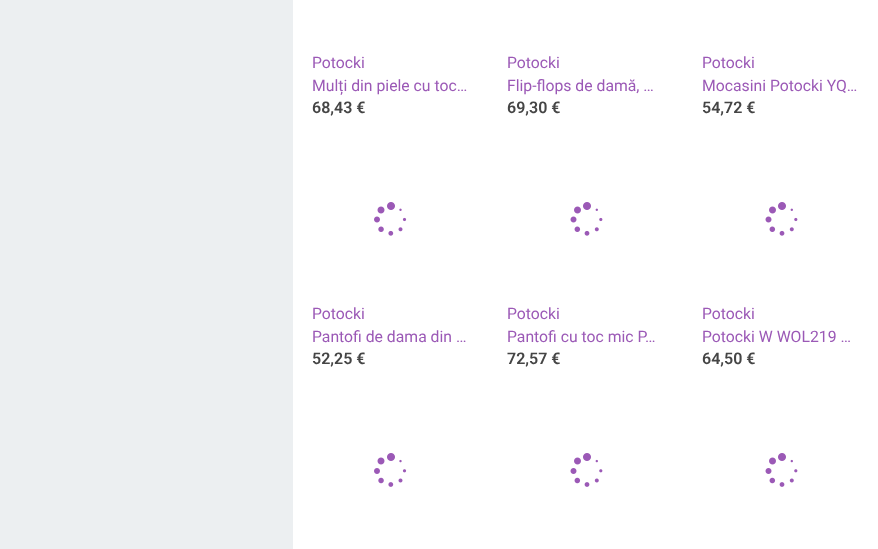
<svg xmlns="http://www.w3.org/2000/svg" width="878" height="549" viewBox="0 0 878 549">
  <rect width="100%" height="100%" fill="#eceff1"/>
  <path d="M293 0h585v549H293z" fill="#fff"/>
  <image x="374" y="202" width="33" height="34" href="img/1.png"/>
  <image x="570" y="202" width="33" height="34" href="img/2.png"/>
  <image x="765" y="202" width="33" height="34" href="img/2.png"/>
  <image x="374" y="453" width="33" height="34" href="img/3.png"/>
  <image x="570" y="453" width="33" height="34" href="img/4.png"/>
  <image x="765" y="453" width="33" height="34" href="img/4.png"/>
  <g font-family="Roboto" font-size="15.75" fill="#9b59b6">
    <text x="312" y="68">Potocki</text>
    <text x="312" y="91">Mulți din piele cu toc…</text>
  </g>
  <text x="312" y="113" font-family="Roboto" font-size="16" font-weight="600" fill="#454545">68,43 €</text>
  <g font-family="Roboto" font-size="15.75" fill="#9b59b6">
    <text x="507" y="68">Potocki</text>
    <text x="507" y="91">Flip-flops de damă, …</text>
  </g>
  <text x="507" y="113" font-family="Roboto" font-size="16" font-weight="600" fill="#454545">69,30 €</text>
  <g font-family="Roboto" font-size="15.75" fill="#9b59b6">
    <text x="702" y="68">Potocki</text>
    <text x="702" y="91">Mocasini Potocki YQ…</text>
  </g>
  <text x="702" y="113" font-family="Roboto" font-size="16" font-weight="600" fill="#454545">54,72 €</text>
  <g font-family="Roboto" font-size="15.75" fill="#9b59b6">
    <text x="312" y="319">Potocki</text>
    <text x="312" y="342">Pantofi de dama din …</text>
  </g>
  <text x="312" y="364" font-family="Roboto" font-size="16" font-weight="600" fill="#454545">52,25 €</text>
  <g font-family="Roboto" font-size="15.75" fill="#9b59b6">
    <text x="507" y="319">Potocki</text>
    <text x="507" y="342">Pantofi cu toc mic P…</text>
  </g>
  <text x="507" y="364" font-family="Roboto" font-size="16" font-weight="600" fill="#454545">72,57 €</text>
  <g font-family="Roboto" font-size="15.75" fill="#9b59b6">
    <text x="702" y="319">Potocki</text>
    <text x="702" y="342">Potocki W WOL219 …</text>
  </g>
  <text x="702" y="364" font-family="Roboto" font-size="16" font-weight="600" fill="#454545">64,50 €</text>
</svg>
